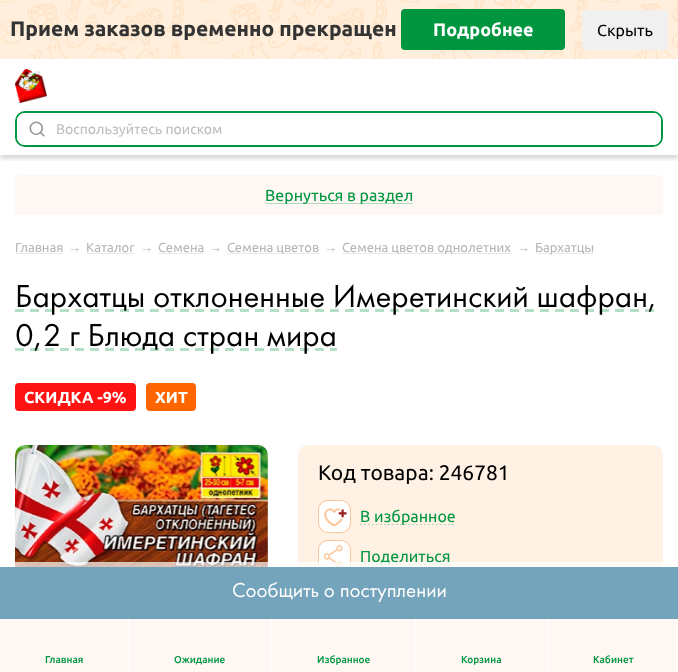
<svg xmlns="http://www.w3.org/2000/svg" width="678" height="672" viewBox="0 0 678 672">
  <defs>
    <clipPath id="clip1"><path d="M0 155h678v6H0z"/></clipPath>
  </defs>
  <rect width="100%" height="100%" fill="#fff"/>
  <image x="0" y="0" width="678" height="59" href="img/1.png"/>
  <rect x="401" y="9" width="164" height="41" rx="4" fill="#00963f"/>
  <rect x="582" y="10" width="86" height="40" rx="4" fill="#f0f0f0"/>
  <g clip-path="url(#clip1)">
    <path d="M0 63h678v96H0z" fill="#00000026" filter="blur(2px)"/>
  </g>
  <image x="15" y="69" width="32" height="34" href="img/2.png"/>
  <rect x="16" y="112" width="646" height="34" rx="9" fill="none" stroke="#00963f" stroke-width="2"/>
  <path d="M25 113H53V145H25C20.5 145 17 141.5 17 137V121C17 116.5 20.5 113 25 113Z" fill="#fff"/>
  <image x="29" y="121" width="16" height="16" href="img/3.png"/>
  <path d="M53 113H653C657.5 113 661 116.5 661 121V137C661 141.5 657.5 145 653 145H53Z" fill="#fff"/>
  <rect x="15" y="175" width="648" height="40" rx="4" fill="#fff7f3"/>
  <path d="M265 203h148v1H265z" fill="#b3dabd"/>
  <path d="M15 253h48v1H15z" fill="#e9e9e9"/>
  <path d="M86 253h49v1H86z" fill="#e9e9e9"/>
  <path d="M158 253h46v1H158z" fill="#e9e9e9"/>
  <path d="M227 253h92v1H227z" fill="#e9e9e9"/>
  <path d="M342 253h170v1H342z" fill="#e9e9e9"/>
  <path d="M535 253h59v1H535z" fill="#e9e9e9"/>
  <path d="M15 310.5H657.5" fill="none" stroke="#b3e0c5" stroke-width="3" stroke-dasharray="9 6"/>
  <path d="M15 349.5H337" fill="none" stroke="#b3e0c5" stroke-width="3" stroke-dasharray="9 6"/>
  <rect x="15" y="383" width="121" height="28" rx="4" fill="#ff1212"/>
  <rect x="146" y="383" width="50" height="28" rx="4" fill="#f60"/>
  <image x="15" y="445" width="253" height="122" href="img/4.png"/>
  <rect x="298" y="445" width="365" height="143" rx="10" fill="#fff2e5"/>
  <image x="318" y="500" width="33" height="33" href="img/5.png"/>
  <image x="360" y="524" width="94" height="1" href="img/6.png"/>
  <image x="318" y="540" width="33" height="27" href="img/7.png"/>
  <image x="360" y="564" width="90" height="1" href="img/8.png"/>
  <path d="M0 567h678v52H0z" fill="#74a4bc"/>
  <path d="M0 619h678v53H0z" fill="#fff7f3"/>
  <path d="M128 619h1v53H128z" fill="#fff"/>
  <path d="M271 619h1v53H271z" fill="#fff"/>
  <path d="M415 619h1v53H415z" fill="#fff"/>
  <path d="M547 619h1v53H547z" fill="#fff"/>
  <text x="10" y="36" font-family="Ubuntu" font-size="21" font-weight="bold" fill="#333">Прием заказов временно прекращен</text>
  <text x="433" y="36" font-family="Ubuntu" font-size="18" font-weight="bold" fill="#fff">Подробнее</text>
  <text x="597" y="36" font-family="Ubuntu" font-size="16" fill="#000">Скрыть</text>
  <text x="56" y="134" font-family="Ubuntu" font-size="14" fill="#bebebe">Воспользуйтесь поиском</text>
  <text x="265" y="201" font-family="Ubuntu" font-size="16" fill="#00963f">Вернуться в раздел</text>
  <text x="15" y="252" font-family="Ubuntu" font-size="13" fill="#b7b7b7">Главная</text>
  <text x="68" y="252" font-family="Liberation Sans" font-size="13" fill="#b7b7b7">→</text>
  <text x="86" y="252" font-family="Ubuntu" font-size="13" fill="#b7b7b7">Каталог</text>
  <text x="140" y="252" font-family="Liberation Sans" font-size="13" fill="#b7b7b7">→</text>
  <text x="158" y="252" font-family="Ubuntu" font-size="13" fill="#b7b7b7">Семена</text>
  <text x="209" y="252" font-family="Liberation Sans" font-size="13" fill="#b7b7b7">→</text>
  <text x="227" y="252" font-family="Ubuntu" font-size="13" fill="#b7b7b7">Семена цветов</text>
  <text x="324" y="252" font-family="Liberation Sans" font-size="13" fill="#b7b7b7">→</text>
  <text x="342" y="252" font-family="Ubuntu" font-size="13" fill="#b7b7b7">Семена цветов однолетних</text>
  <text x="517" y="252" font-family="Liberation Sans" font-size="13" fill="#b7b7b7">→</text>
  <text x="535" y="252" font-family="Ubuntu" font-size="13" fill="#b7b7b7">Бархатцы</text>
  <g font-family="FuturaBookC" font-size="33" fill="#000">
    <text x="15" y="307">Бархатцы отклоненные Имеретинский шафран,</text>
    <text x="15" y="346">0,2 г Блюда стран мира</text>
  </g>
  <g font-family="Ubuntu" font-size="16" font-weight="bold" fill="#fff">
    <text x="24" y="403">СКИДКА -9%</text>
    <text x="155" y="403">ХИТ</text>
  </g>
  <text x="318" y="480" font-family="Ubuntu" font-size="21" fill="#000">Код товара: 246781</text>
  <g font-family="Ubuntu" font-size="16" fill="#00963f">
    <text x="360" y="522">В избранное</text>
    <text x="360" y="562">Поделиться</text>
  </g>
  <path d="M15 562h648v5H15z" fill="#ffffffb3"/>
  <text x="232" y="597" font-family="FuturaBookC" font-size="21" fill="#fff">Сообщить о поступлении</text>
  <g font-family="Ubuntu" font-size="10" font-weight="500" fill="#00963f">
    <text x="45" y="663">Главная</text>
    <text x="174" y="663">Ожидание</text>
    <text x="317" y="663">Избранное</text>
    <text x="461" y="663">Корзина</text>
    <text x="593" y="663">Кабинет</text>
  </g>
</svg>
